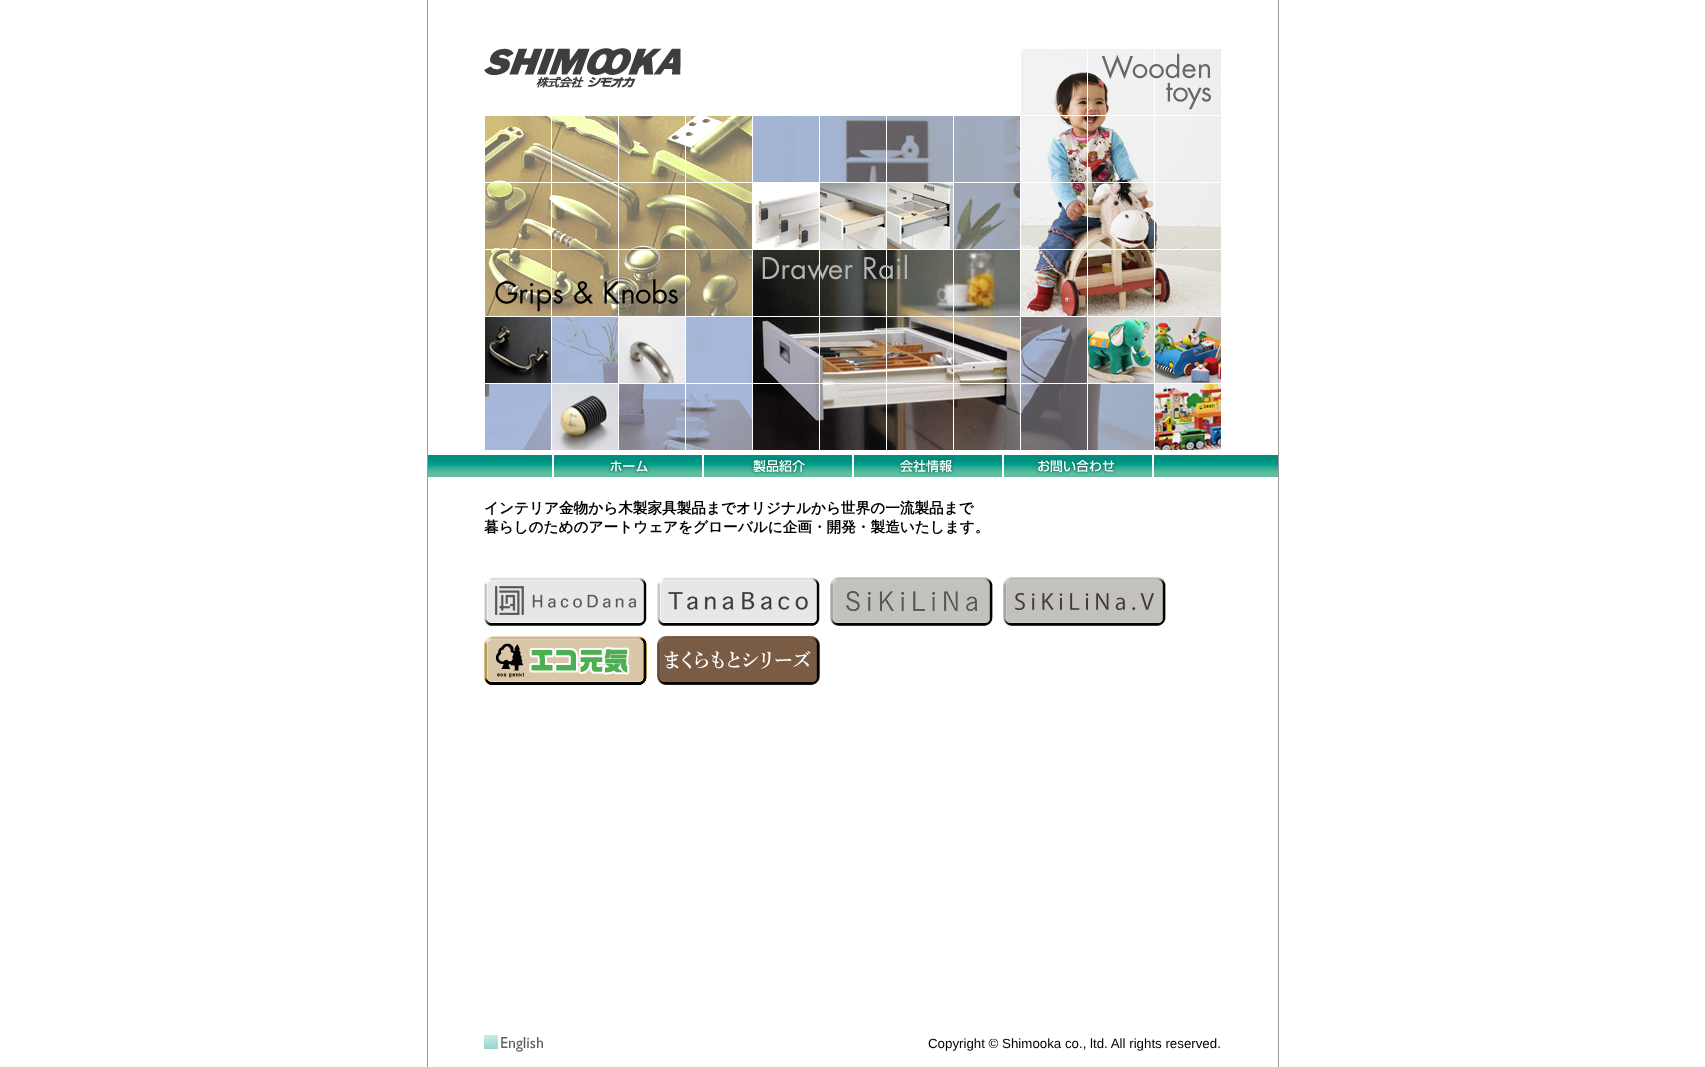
<svg xmlns="http://www.w3.org/2000/svg" width="1705" height="1067" viewBox="0 0 1705 1067">
  <rect width="100%" height="100%" fill="#fff"/>
  <path d="M1278 0h1v1067H1278z" fill="#999"/>
  <path d="M427 0h1v1067H427z" fill="#999"/>
  <image x="484" y="48" width="737" height="402" href="img/1.png"/>
  <image x="428" y="455" width="124" height="22" href="img/2.png"/>
  <image x="554" y="455" width="148" height="22" href="img/3.png"/>
  <image x="704" y="455" width="148" height="22" href="img/4.png"/>
  <image x="854" y="455" width="148" height="22" href="img/5.png"/>
  <image x="1004" y="455" width="148" height="22" href="img/6.png"/>
  <image x="1154" y="455" width="124" height="22" href="img/2.png"/>
  <image x="484" y="577" width="163" height="49" href="img/7.png"/>
  <image x="657" y="577" width="163" height="49" href="img/8.png"/>
  <image x="830" y="577" width="163" height="49" href="img/9.png"/>
  <image x="1003" y="577" width="163" height="49" href="img/10.png"/>
  <image x="484" y="636" width="163" height="49" href="img/11.png"/>
  <image x="657" y="636" width="163" height="49" href="img/12.png"/>
  <image x="484" y="1035" width="59" height="17" href="img/13.png"/>
  <g font-family="WenQuanYi Zen Hei" font-size="14.65" font-weight="bold" fill="#000">
    <text x="484" y="513">インテリア金物から木製家具製品までオリジナルから世界の一流製品まで</text>
    <text x="484" y="532">暮らしのためのアートウェアをグローバルに企画・開発・製造いたします。</text>
  </g>
  <text x="928" y="1048" font-family="Liberation Sans" font-size="13.3" fill="#000">Copyright © Shimooka co., ltd. All rights reserved.</text>
</svg>
